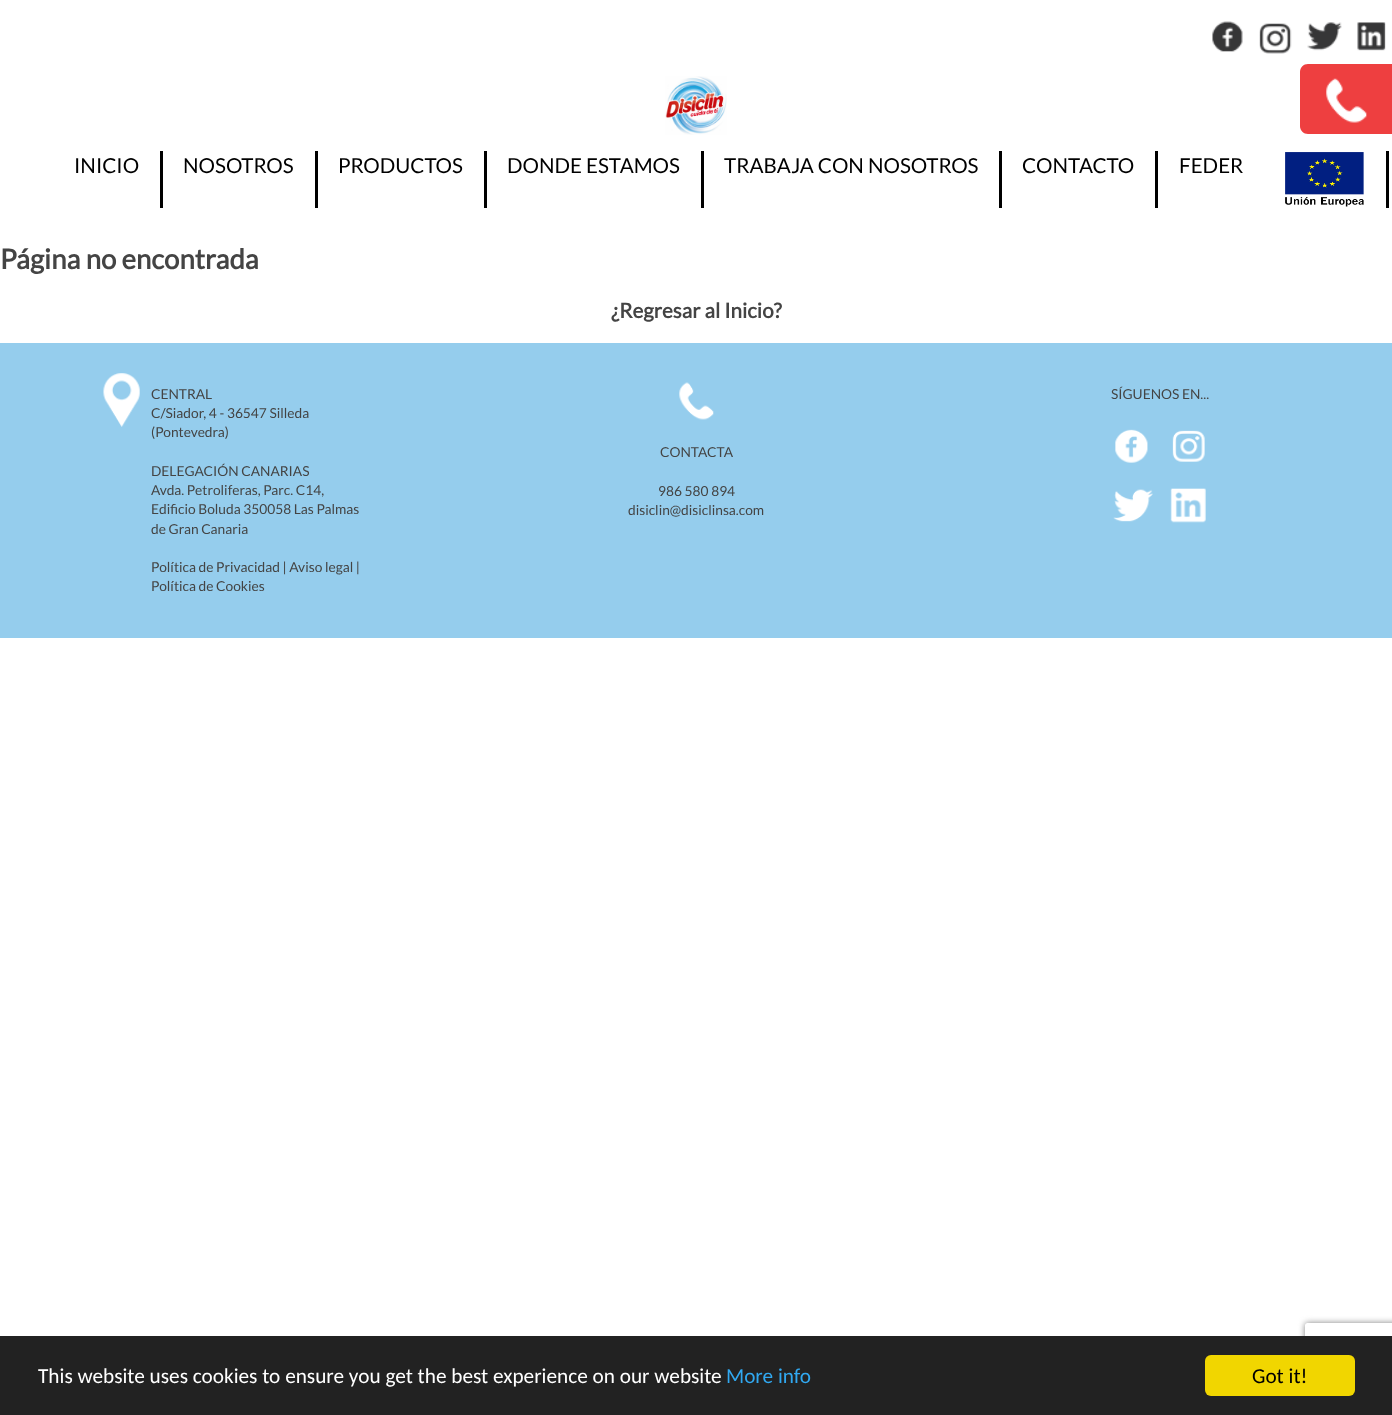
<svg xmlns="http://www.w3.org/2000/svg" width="1392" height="1415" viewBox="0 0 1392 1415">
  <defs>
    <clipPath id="clip1"><path d="M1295 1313H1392V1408H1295ZM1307.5 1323H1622.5C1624 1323 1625 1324 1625 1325.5V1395.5C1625 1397 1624 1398 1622.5 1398H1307.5C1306 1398 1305 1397 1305 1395.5V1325.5C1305 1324 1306 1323 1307.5 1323Z" clip-rule="evenodd"/></clipPath>
  </defs>
  <rect width="100%" height="100%" fill="#fff"/>
  <image x="1212" y="21" width="31" height="31" href="img/1.png"/>
  <image x="1259" y="23" width="33" height="31" href="img/2.png"/>
  <image x="1307" y="22" width="35" height="29" href="img/3.png"/>
  <image x="1357" y="22" width="29" height="29" href="img/4.png"/>
  <image x="665" y="76" width="62" height="59" href="img/5.png"/>
  <path d="M1308 64H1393V134H1308C1303.5 134 1300 130.5 1300 126V72C1300 67.5 1303.5 64 1308 64Z" fill="#ee3f40"/>
  <image x="1326" y="78" width="41" height="45" href="img/6.png"/>
  <path d="M160 151h3v57H160z" fill="#000"/>
  <path d="M315 151h3v57H315z" fill="#000"/>
  <path d="M484 151h3v57H484z" fill="#000"/>
  <path d="M701 151h3v57H701z" fill="#000"/>
  <path d="M999 151h3v57H999z" fill="#000"/>
  <path d="M1155 151h3v57H1155z" fill="#000"/>
  <path d="M1386 151h3v57H1386z" fill="#000"/>
  <image x="1285" y="152" width="79" height="55" href="img/7.png"/>
  <path d="M0 343h1392v295H0z" fill="#95cded"/>
  <image x="103" y="373" width="37" height="54" href="img/8.png"/>
  <image x="679" y="382" width="35" height="38" href="img/9.png"/>
  <image x="1115" y="429" width="33" height="34" href="img/10.png"/>
  <image x="1172" y="430" width="33" height="32" href="img/11.png"/>
  <image x="1113" y="489" width="40" height="33" href="img/12.png"/>
  <image x="1170" y="488" width="36" height="35" href="img/13.png"/>
  <g clip-path="url(#clip1)">
    <rect x="1305" y="1323" width="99" height="75" rx="2.5" fill="#808080" filter="blur(3px)"/>
  </g>
  <path d="M0 1336h1392v79H0z" fill="#222"/>
  <rect x="1205" y="1355" width="150" height="41" rx="6" fill="#f1d600"/>
  <g font-family="Lato" font-size="20.6" fill="#000">
    <text x="74" y="173">INICIO</text>
    <text x="183" y="173">NOSOTROS</text>
    <text x="338" y="173">PRODUCTOS</text>
    <text x="507" y="173">DONDE ESTAMOS</text>
    <text x="724" y="173">TRABAJA CON NOSOTROS</text>
    <text x="1022" y="173">CONTACTO</text>
    <text x="1179" y="173">FEDER</text>
  </g>
  <text x="0" y="269" font-family="Lato" font-size="27.5" font-weight="bold" fill="#444">Página no encontrada</text>
  <text x="611" y="318" font-family="Lato" font-size="20.6" font-weight="bold" fill="#444">¿Regresar al Inicio?</text>
  <g font-family="Lato" font-size="13.75" fill="#444">
    <text x="151" y="399">CENTRAL</text>
    <text x="151" y="418">C/Siador, 4 - 36547 Silleda</text>
    <text x="151" y="437">(Pontevedra)</text>
    <text x="151" y="476">DELEGACIÓN CANARIAS</text>
    <text x="151" y="495">Avda. Petroliferas, Parc. C14,</text>
    <text x="151" y="514">Edificio Boluda 350058 Las Palmas</text>
    <text x="151" y="534">de Gran Canaria</text>
    <text x="151" y="572">Política de Privacidad | Aviso legal |</text>
    <text x="151" y="591">Política de Cookies</text>
    <text x="660" y="457">CONTACTA</text>
    <text x="658" y="496">986 580 894</text>
    <text x="628" y="515">disiclin@disiclinsa.com</text>
    <text x="1111" y="399">SÍGUENOS EN...</text>
  </g>
  <text x="38" y="1383" font-family="Carlito" font-size="21.25" fill="#fff">This website uses cookies to ensure you get the best experience on our website</text>
  <text x="726" y="1383" font-family="Carlito" font-size="21.25" fill="#31a8f0">More info</text>
  <text x="1252" y="1383" font-family="Carlito" font-size="21.25" fill="#000">Got it!</text>
</svg>
